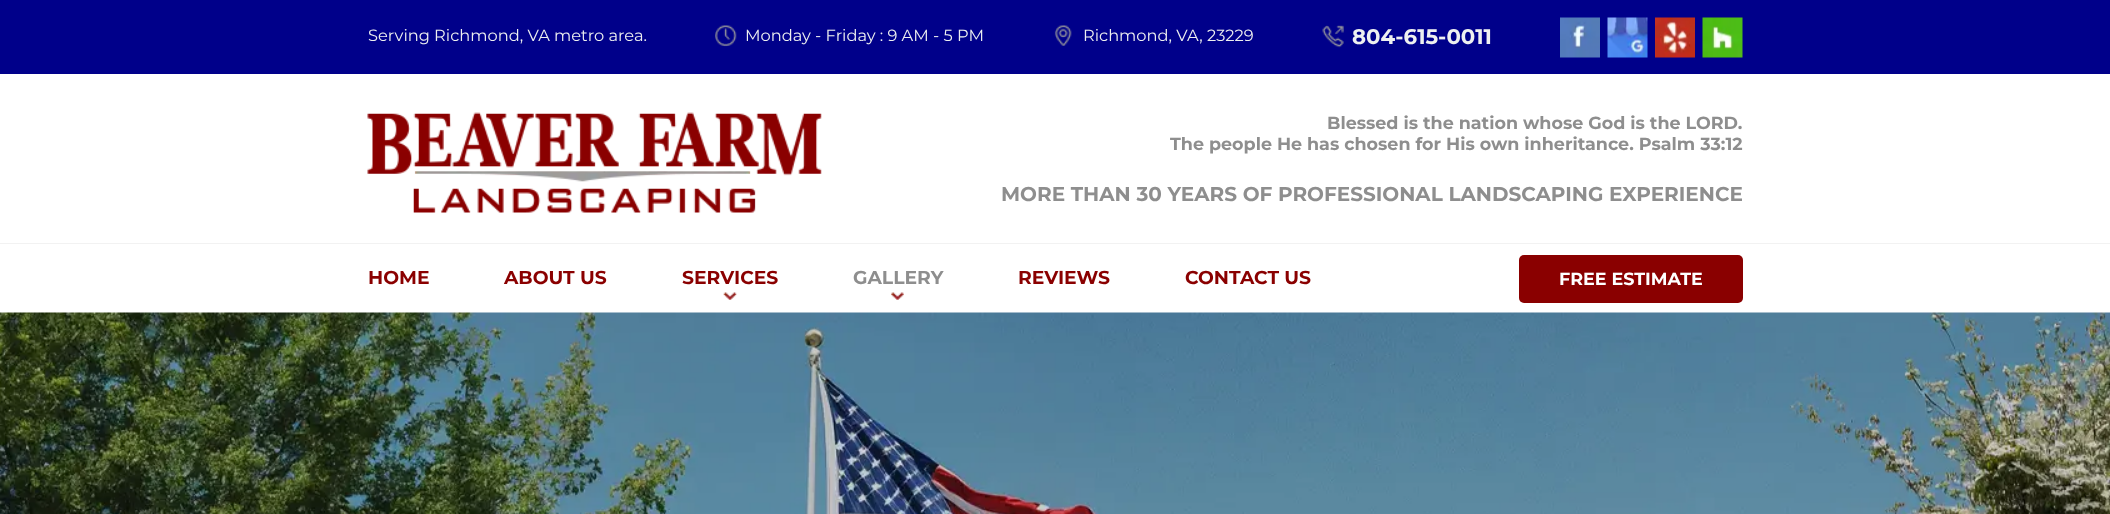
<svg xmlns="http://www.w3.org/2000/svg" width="2110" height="514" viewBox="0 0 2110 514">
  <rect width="100%" height="100%" fill="#00008a"/>
  <image x="715" y="25" width="22" height="22" href="img/1.png"/>
  <image x="1054" y="25" width="18" height="21" href="img/2.png"/>
  <image x="1322" y="25" width="22" height="23" href="img/3.png"/>
  <image x="1560" y="17" width="40" height="41" href="img/4.png"/>
  <image x="1607" y="17" width="41" height="41" href="img/5.png"/>
  <image x="1655" y="17" width="40" height="41" href="img/6.png"/>
  <image x="1702" y="17" width="41" height="41" href="img/7.png"/>
  <path d="M0 74h2110v169H0z" fill="#fff"/>
  <image x="367" y="112" width="455" height="101" href="img/8.png"/>
  <path d="M0 244h2110v69H0z" fill="#fff"/>
  <path d="M0 243h2110v1H0z" fill="#f2f2f2"/>
  <image x="723" y="292" width="14" height="8" href="img/9.png"/>
  <image x="891" y="292" width="13" height="8" href="img/10.png"/>
  <rect x="1519" y="255" width="224" height="48" rx="5" fill="#8a0000"/>
  <image x="0" y="312" width="2110" height="202" href="img/11.png"/>
  <g font-family="Montserrat" font-size="16.25" font-weight="100" fill="#eef0f0">
    <text x="368" y="41">Serving Richmond, VA metro area.</text>
    <text x="745" y="41">Monday - Friday : 9 AM - 5 PM</text>
    <text x="1083" y="41">Richmond, VA, 23229</text>
  </g>
  <text x="1352" y="44" font-family="'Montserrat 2'" font-size="21.25" font-weight="100" fill="#eef0f0">804-615-0011</text>
  <g font-family="'Montserrat 2'" font-size="17.5" font-weight="100" fill="#8e8e8e">
    <text x="1327" y="129">Blessed is the nation whose God is the LORD.</text>
    <text x="1170" y="150">The people He has chosen for His own inheritance. Psalm 33:12</text>
  </g>
  <text x="1001" y="201" font-family="'Montserrat 2'" font-size="20" font-weight="100" fill="#8e8e8e">MORE THAN 30 YEARS OF PROFESSIONAL LANDSCAPING EXPERIENCE</text>
  <g font-family="'Montserrat 2'" font-size="18.75" font-weight="100" fill="#8a0000">
    <text x="368" y="284">HOME</text>
    <text x="504" y="284">ABOUT US</text>
    <text x="682" y="284">SERVICES</text>
  </g>
  <text x="853" y="284" font-family="'Montserrat 2'" font-size="18.75" font-weight="100" fill="#8e8e8e">GALLERY</text>
  <g font-family="'Montserrat 2'" font-size="18.75" font-weight="100" fill="#8a0000">
    <text x="1018" y="284">REVIEWS</text>
    <text x="1185" y="284">CONTACT US</text>
  </g>
  <text x="1559" y="285" font-family="'Montserrat 2'" font-size="17.5" font-weight="100" fill="#fff">FREE ESTIMATE</text>
</svg>
